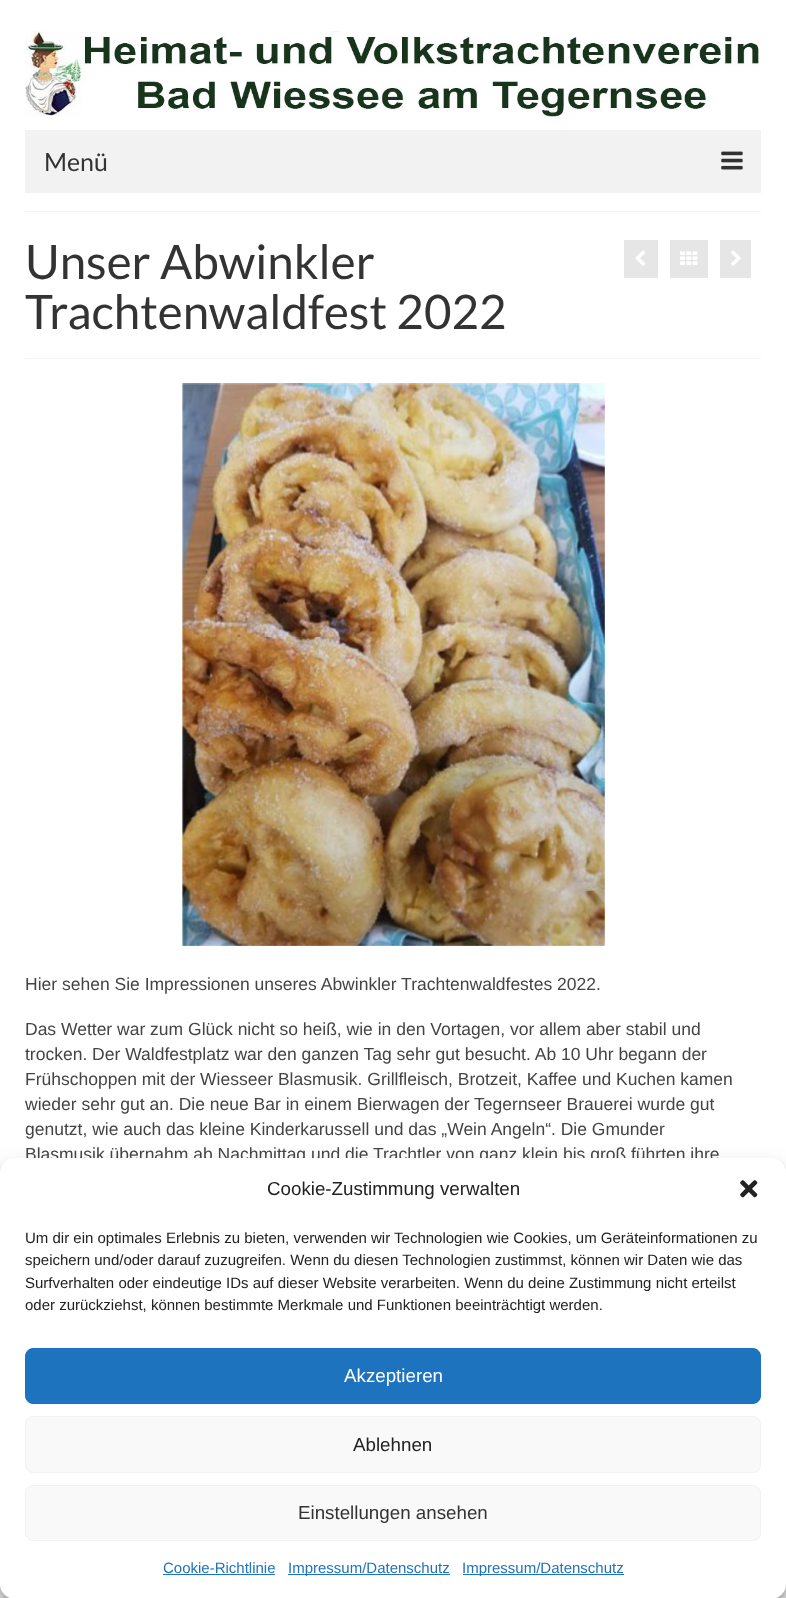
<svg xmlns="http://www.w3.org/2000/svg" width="786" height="1598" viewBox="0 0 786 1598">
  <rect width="100%" height="100%" fill="#fff"/>
  <image x="25" y="31" width="735" height="86" href="img/1.png"/>
  <path d="M25 130h736v63H25z" fill="#f2f2f2"/>
  <image x="721" y="151" width="22" height="19" href="img/2.png"/>
  <path d="M25 211h736v1H25z" fill="#f2f2f2"/>
  <path d="M25 358h736v1H25z" fill="#f2f2f2"/>
  <path d="M624 240h34v38H624z" fill="#e6e6e6"/>
  <image x="635" y="250" width="11" height="16" href="img/3.png"/>
  <path d="M670 240h38v38H670z" fill="#e6e6e6"/>
  <image x="680" y="251" width="18" height="14" href="img/4.png"/>
  <path d="M720 240h31v38H720z" fill="#e6e6e6"/>
  <image x="731" y="250" width="10" height="16" href="img/5.png"/>
  <image x="182" y="383" width="423" height="563" href="img/6.png"/>
  <path d="M0 1584h786v14H0z" fill="#f2f2f2"/>
  <rect y="1165" width="786" height="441" rx="15" fill="#0000003b" filter="blur(4px)"/>
  <rect y="1170" width="786" height="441" rx="15" fill="#00000030" filter="blur(12.5px)"/>
  <text x="44" y="171" font-family="Lato" font-size="25" fill="#333">Menü</text>
  <g font-family="Lato" font-size="47.5" fill="#333">
    <text x="25" y="279">Unser Abwinkler</text>
    <text x="25" y="329">Trachtenwaldfest 2022</text>
  </g>
  <g font-family="Liberation Sans" font-size="17.5" fill="#444">
    <text x="25" y="990">Hier sehen Sie Impressionen unseres Abwinkler Trachtenwaldfestes 2022.</text>
    <text x="25" y="1035">Das Wetter war zum Glück nicht so heiß, wie in den Vortagen, vor allem aber stabil und</text>
    <text x="25" y="1060">trocken. Der Waldfestplatz war den ganzen Tag sehr gut besucht. Ab 10 Uhr begann der</text>
    <text x="25" y="1085">Frühschoppen mit der Wiesseer Blasmusik. Grillfleisch, Brotzeit, Kaffee und Kuchen kamen</text>
    <text x="25" y="1110">wieder sehr gut an. Die neue Bar in einem Bierwagen der Tegernseer Brauerei wurde gut</text>
    <text x="25" y="1135">genutzt, wie auch das kleine Kinderkarussell und das „Wein Angeln“. Die Gmunder</text>
    <text x="25" y="1160">Blasmusik übernahm ab Nachmittag und die Trachtler von ganz klein bis groß führten ihre</text>
  </g>
  <rect y="1158" width="786" height="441" rx="15" fill="#fff"/>
  <text x="267" y="1195" font-family="Liberation Sans" font-size="18.75" fill="#222">Cookie-Zustimmung verwalten</text>
  <image x="740" y="1180" width="18" height="18" href="img/7.png"/>
  <g font-family="Liberation Sans" font-size="15" fill="#222">
    <text x="25" y="1243">Um dir ein optimales Erlebnis zu bieten, verwenden wir Technologien wie Cookies, um Geräteinformationen zu</text>
    <text x="25" y="1265">speichern und/oder darauf zuzugreifen. Wenn du diesen Technologien zustimmst, können wir Daten wie das</text>
    <text x="25" y="1288">Surfverhalten oder eindeutige IDs auf dieser Website verarbeiten. Wenn du deine Zustimmung nicht erteilst</text>
    <text x="25" y="1310">oder zurückziehst, können bestimmte Merkmale und Funktionen beeinträchtigt werden.</text>
  </g>
  <rect x="25.5" y="1348.5" width="735" height="55" rx="7.5" fill="#1e73be" stroke="#1e73be"/>
  <text x="344" y="1382" font-family="Liberation Sans" font-size="18.75" fill="#fff">Akzeptieren</text>
  <rect x="25.5" y="1416.5" width="735" height="56" rx="7.5" fill="#f9f9f9" stroke="#f2f2f2"/>
  <text x="353" y="1451" font-family="Liberation Sans" font-size="18.75" fill="#222">Ablehnen</text>
  <rect x="25.5" y="1485.5" width="735" height="55" rx="7.5" fill="#f9f9f9" stroke="#f2f2f2"/>
  <text x="298" y="1519" font-family="Liberation Sans" font-size="18.75" fill="#333">Einstellungen ansehen</text>
  <text x="163" y="1573" font-family="Liberation Sans" font-size="15" fill="#1e73be">Cookie-Richtlinie</text>
  <path d="M163 1574h112v1H163z" fill="#1e73be"/>
  <path d="M288 1574h162v1H288z" fill="#1e73be"/>
  <text x="288" y="1573" font-family="Liberation Sans" font-size="15" fill="#1e73be">Impressum/Datenschutz</text>
  <path d="M463 1574h161v1H463z" fill="#1e73be"/>
  <text x="462" y="1573" font-family="Liberation Sans" font-size="15" fill="#1e73be">Impressum/Datenschutz</text>
</svg>
